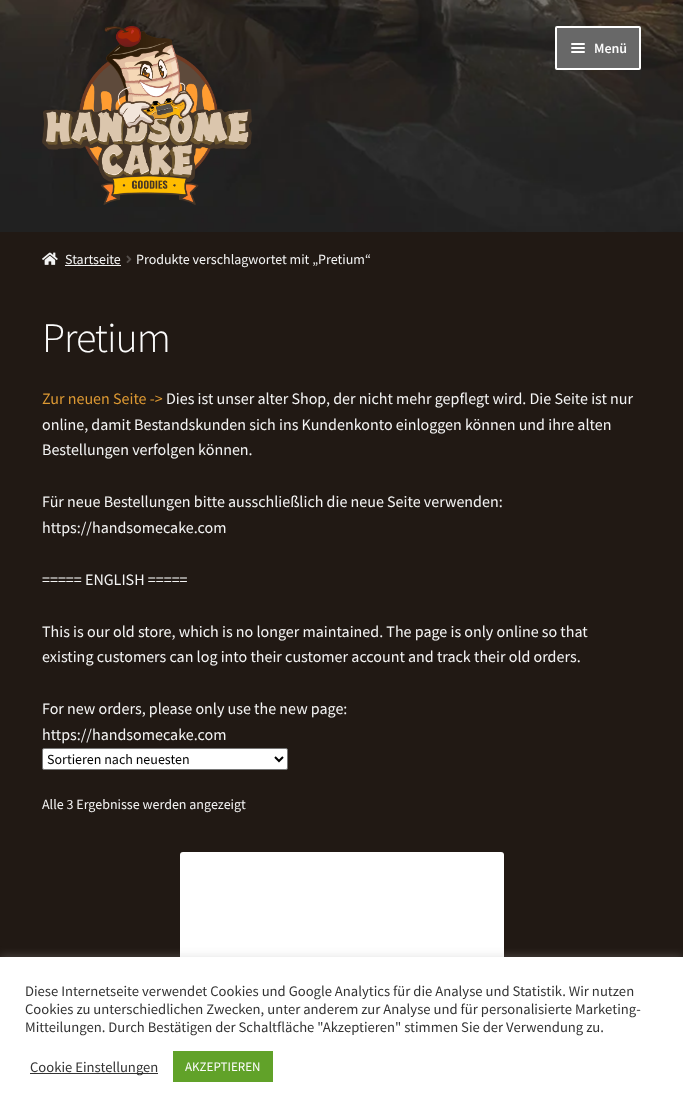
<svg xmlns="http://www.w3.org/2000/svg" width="683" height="1112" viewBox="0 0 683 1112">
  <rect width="100%" height="100%" fill="#211914"/>
  <image x="0" y="0" width="683" height="232" href="img/1.png"/>
  <image x="42" y="26" width="210" height="179" href="img/2.png"/>
  <rect x="556" y="27" width="84" height="42" rx="1" fill="#686868" stroke="#fff" stroke-width="2"/>
  <rect x="571" y="43" width="14" height="2" rx="1" fill="#fff"/>
  <rect x="571" y="47" width="14" height="2" rx="1" fill="#fff"/>
  <rect x="571" y="51" width="14" height="2" rx="1" fill="#fff"/>
  <image x="42" y="252" width="16" height="13" href="img/3.png"/>
  <path d="M65 265h56v1H65z" fill="#f4f4f4"/>
  <image x="126" y="255" width="6" height="8" href="img/4.png"/>
  <rect x="42.5" y="748.5" width="245" height="21" rx="1.5" fill="#fff" stroke="#767676"/>
  <path d="M275 757L279 761L283 757" fill="none" stroke="#000" stroke-width="2"/>
  <image x="180" y="852" width="324" height="105" href="img/5.png"/>
  <path d="M0 956h683v155H0z" fill="#acabab4d" filter="blur(5px)"/>
  <path d="M0 957h683v155H0z" fill="#fff"/>
  <path d="M30 1073h128v1H30z" fill="#333"/>
  <path d="M173 1051h100v31H173z" fill="#61a229"/>
  <text x="594" y="53" font-family="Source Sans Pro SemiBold" font-size="14" font-weight="600" fill="#fcfcfc">Menü</text>
  <g font-family="Source Sans Pro" font-size="14" fill="#f4f4f4">
    <text x="65" y="264">Startseite</text>
    <text x="136" y="264">Produkte verschlagwortet mit „Pretium“</text>
  </g>
  <text x="42" y="352" font-family="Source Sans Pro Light" font-size="42" font-weight="300" letter-spacing="-1" fill="#fcfcfc">Pretium</text>
  <text x="42" y="404" font-family="Source Sans Pro" font-size="16" fill="#d93">Zur neuen Seite -&gt;</text>
  <g font-family="Source Sans Pro" font-size="16" fill="#f4f4f4">
    <text x="166" y="404">Dies ist unser alter Shop, der nicht mehr gepflegt wird. Die Seite ist nur</text>
    <text x="42" y="430">online, damit Bestandskunden sich ins Kundenkonto einloggen können und ihre alten</text>
    <text x="42" y="455">Bestellungen verfolgen können.</text>
    <text x="42" y="507">Für neue Bestellungen bitte ausschließlich die neue Seite verwenden:</text>
    <text x="42" y="533">https://handsomecake.com</text>
    <text x="42" y="585">===== ENGLISH =====</text>
    <text x="42" y="637">This is our old store, which is no longer maintained. The page is only online so that</text>
    <text x="42" y="662">existing customers can log into their customer account and track their old orders.</text>
    <text x="42" y="714">For new orders, please only use the new page:</text>
    <text x="42" y="740">https://handsomecake.com</text>
  </g>
  <text x="47" y="764" font-family="Source Sans Pro" font-size="14" fill="#000">Sortieren nach neuesten</text>
  <text x="42" y="809" font-family="Source Sans Pro" font-size="14" fill="#f4f4f4">Alle 3 Ergebnisse werden angezeigt</text>
  <g font-family="Source Sans Pro" font-size="14.65" fill="#333">
    <text x="25" y="996">Diese Internetseite verwendet Cookies und Google Analytics für die Analyse und Statistik. Wir nutzen</text>
    <text x="25" y="1014">Cookies zu unterschiedlichen Zwecken, unter anderem zur Analyse und für personalisierte Marketing-</text>
    <text x="25" y="1032">Mitteilungen. Durch Bestätigen der Schaltfläche "Akzeptieren" stimmen Sie der Verwendung zu.</text>
    <text x="30" y="1072">Cookie Einstellungen</text>
  </g>
  <text x="185" y="1071" font-family="Source Sans Pro" font-size="13" fill="#fcfcfc">AKZEPTIEREN</text>
</svg>
